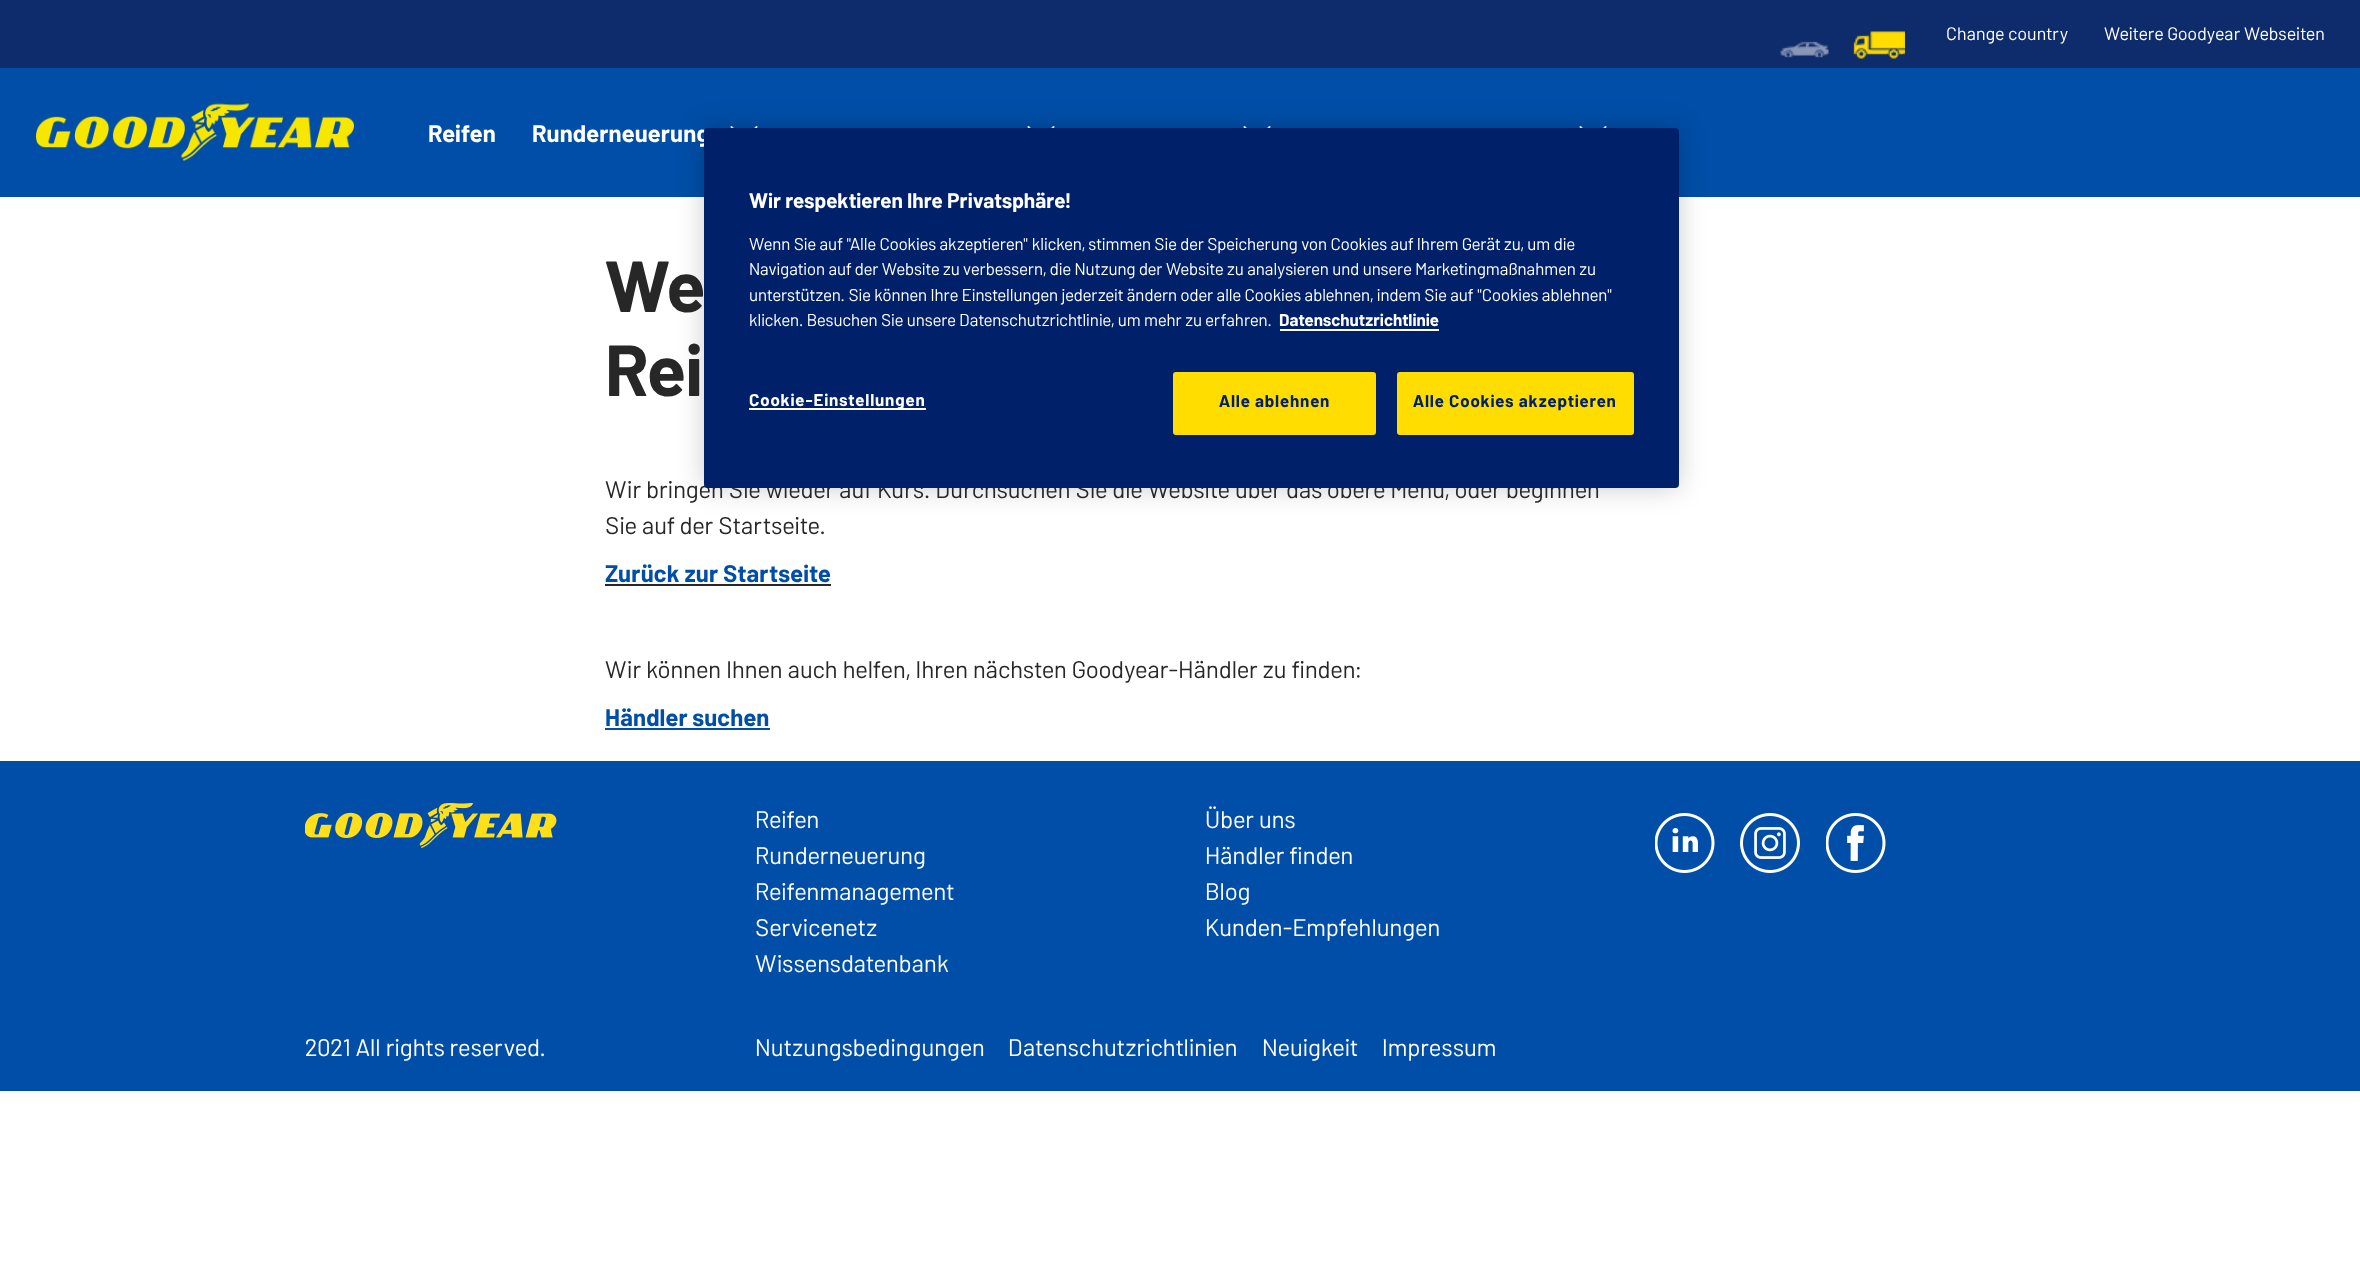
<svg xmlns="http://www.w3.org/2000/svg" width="2360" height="1272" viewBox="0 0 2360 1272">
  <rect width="100%" height="100%" fill="#fff"/>
  <path d="M0 68h2360v129H0z" fill="#004ea8"/>
  <path d="M0 0h2360v68H0z" fill="#0e2b6c"/>
  <image x="1780" y="41" width="49" height="17" href="img/1.png"/>
  <image x="1853" y="31" width="52" height="28" href="img/2.png"/>
  <image x="36" y="103" width="318" height="58" href="img/3.png"/>
  <image x="730" y="126" width="28" height="2" href="img/4.png"/>
  <image x="1027" y="126" width="28" height="2" href="img/4.png"/>
  <image x="1243" y="126" width="28" height="2" href="img/4.png"/>
  <image x="1579" y="126" width="28" height="2" href="img/4.png"/>
  <rect x="704" y="128" width="975" height="360" rx="4" fill="#00000033" filter="blur(13.5px)"/>
  <path d="M605 584h226v2H605z" fill="#272727"/>
  <path d="M605 728h165v2H605z" fill="#004ea8"/>
  <path d="M0 761h2360v330H0z" fill="#004ea8"/>
  <image x="305" y="803" width="252" height="45" href="img/5.png"/>
  <image x="1655" y="813" width="60" height="60" href="img/6.png"/>
  <image x="1740" y="813" width="60" height="60" href="img/7.png"/>
  <image x="1826" y="813" width="60" height="60" href="img/8.png"/>
  <g font-family="Barlow" font-size="18" letter-spacing="0.15" fill="#fff">
    <text x="1946" y="40">Change country</text>
    <text x="2104" y="40">Weitere Goodyear Webseiten</text>
  </g>
  <g font-family="Barlow" font-size="24" font-weight="bold" letter-spacing="0.15" fill="#fff">
    <text x="428" y="142">Reifen</text>
    <text x="532" y="142">Runderneuerung</text>
  </g>
  <g font-family="Barlow" font-size="72" font-weight="bold" letter-spacing="0.15" fill="#272727">
    <text x="605" y="312">We</text>
    <text x="605" y="396">Rei</text>
  </g>
  <text x="605" y="498" font-family="Barlow" font-size="24" letter-spacing="0.15" fill="#272727">Wir bringen Sie wieder auf Kurs. Durchsuchen Sie die Website über das obere Menü, oder beginnen</text>
  <rect x="704" y="128" width="975" height="360" rx="4" fill="#002169"/>
  <rect x="1398" y="373" width="235" height="61" rx="2" fill="#fd0" stroke="#fd0" stroke-width="2"/>
  <text x="1413" y="407" font-family="Barlow" font-size="17.07" font-weight="bold" letter-spacing="0.85" fill="#002169">Alle Cookies akzeptieren</text>
  <rect x="1174" y="373" width="201" height="61" rx="2" fill="#fd0" stroke="#fd0" stroke-width="2"/>
  <text x="1219" y="407" font-family="Barlow" font-size="17.07" font-weight="bold" letter-spacing="0.85" fill="#002169">Alle ablehnen</text>
  <path d="M749 408h177v2H749z" fill="#fff"/>
  <text x="749" y="406" font-family="Barlow" font-size="17.07" font-weight="bold" letter-spacing="0.85" fill="#fff">Cookie-Einstellungen</text>
  <text x="1279" y="326" font-family="Barlow" font-size="17.07" font-weight="bold" fill="#fff">Datenschutzrichtlinie</text>
  <path d="M1280 329h159v2H1280z" fill="#fff"/>
  <g font-family="Barlow" font-size="17.07" fill="#fff">
    <text x="749" y="326">klicken. Besuchen Sie unsere Datenschutzrichtlinie, um mehr zu erfahren.</text>
    <text x="749" y="301">unterstützen. Sie können Ihre Einstellungen jederzeit ändern oder alle Cookies ablehnen, indem Sie auf "Cookies ablehnen"</text>
    <text x="749" y="275">Navigation auf der Website zu verbessern, die Nutzung der Website zu analysieren und unsere Marketingmaßnahmen zu</text>
    <text x="749" y="250">Wenn Sie auf "Alle Cookies akzeptieren" klicken, stimmen Sie der Speicherung von Cookies auf Ihrem Gerät zu, um die</text>
  </g>
  <text x="749" y="208" font-family="Barlow" font-size="21" font-weight="bold" fill="#fff">Wir respektieren Ihre Privatsphäre!</text>
  <text x="605" y="534" font-family="Barlow" font-size="24" letter-spacing="0.15" fill="#272727">Sie auf der Startseite.</text>
  <text x="605" y="582" font-family="Barlow" font-size="24" font-weight="bold" letter-spacing="0.15" fill="#004ea8">Zurück zur Startseite</text>
  <text x="605" y="678" font-family="Barlow" font-size="24" letter-spacing="0.15" fill="#272727">Wir können Ihnen auch helfen, Ihren nächsten Goodyear-Händler zu finden:</text>
  <text x="605" y="726" font-family="Barlow" font-size="24" font-weight="bold" letter-spacing="0.15" fill="#004ea8">Händler suchen</text>
  <g font-family="Barlow" font-size="24" letter-spacing="0.15" fill="#fff">
    <text x="755" y="828">Reifen</text>
    <text x="755" y="864">Runderneuerung</text>
    <text x="755" y="900">Reifenmanagement</text>
    <text x="755" y="936">Servicenetz</text>
    <text x="755" y="972">Wissensdatenbank</text>
    <text x="1205" y="828">Über uns</text>
    <text x="1205" y="864">Händler finden</text>
    <text x="1205" y="900">Blog</text>
    <text x="1205" y="936">Kunden-Empfehlungen</text>
    <text x="305" y="1056">2021 All rights reserved.</text>
    <text x="755" y="1056">Nutzungsbedingungen</text>
    <text x="1008" y="1056">Datenschutzrichtlinien</text>
    <text x="1262" y="1056">Neuigkeit</text>
    <text x="1382" y="1056">Impressum</text>
  </g>
</svg>
